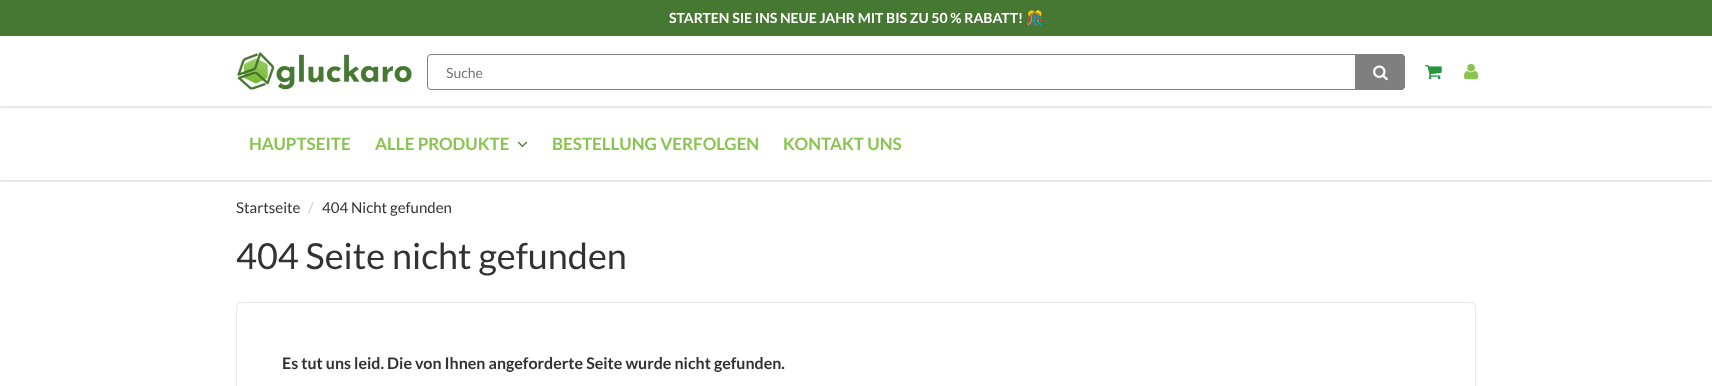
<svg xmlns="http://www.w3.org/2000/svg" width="1712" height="386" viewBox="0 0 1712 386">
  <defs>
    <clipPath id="clip1"><path d="M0 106h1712v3H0z"/></clipPath>
    <clipPath id="clip2"><path d="M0 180h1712v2H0z"/></clipPath>
  </defs>
  <rect width="100%" height="100%" fill="#fff"/>
  <path d="M0 0h1712v36H0z" fill="#477833"/>
  <g clip-path="url(#clip1)">
    <path d="M0 38h1712v70H0z" fill="#0b191c1f" filter="blur(1px)"/>
  </g>
  <image x="237" y="52" width="175" height="38" href="img/1.png"/>
  <rect x="427.5" y="54.5" width="977" height="35" rx="3.5" fill="none" stroke="#7f7f7f"/>
  <path d="M1355.5 54.5H1401C1403 54.5 1404.5 56 1404.5 58V86C1404.5 88 1403 89.5 1401 89.5H1355.5Z" fill="#7f7f7f" stroke="#7f7f7f"/>
  <image x="1373" y="65" width="15" height="16" href="img/2.png"/>
  <image x="1425" y="65" width="17" height="15" href="img/3.png"/>
  <image x="1464" y="63" width="15" height="17" href="img/4.png"/>
  <g clip-path="url(#clip2)">
    <path d="M0 110h1712v72H0z" fill="#0b191c1f" filter="blur(1px)"/>
  </g>
  <image x="517" y="141" width="11" height="7" href="img/5.png"/>
  <path d="M0 182h1712v1H0z" fill="#fff"/>
  <rect x="236.5" y="302.5" width="1239" height="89" rx="4.5" fill="none" stroke="#e7e8e8"/>
  <text x="669" y="23" font-family="Lato" font-size="14" font-weight="bold" fill="#fff">STARTEN SIE INS NEUE JAHR MIT BIS ZU 50 % RABATT!</text>
  <text x="1026" y="23" font-family="Noto Color Emoji" font-size="14" font-weight="bold" fill="#fff">🎊</text>
  <text x="446" y="78" font-family="Lato" font-size="14" fill="#757575">Suche</text>
  <g font-family="Lato" font-size="17" font-weight="bold" fill="#8ac450">
    <text x="249" y="150">HAUPTSEITE</text>
    <text x="375" y="150">ALLE PRODUKTE</text>
    <text x="552" y="150">BESTELLUNG VERFOLGEN</text>
    <text x="783" y="150">KONTAKT UNS</text>
  </g>
  <text x="236" y="213" font-family="Lato" font-size="15" fill="#333232">Startseite</text>
  <text x="308" y="213" font-family="Lato" font-size="15" fill="#ccc">/</text>
  <text x="322" y="213" font-family="Lato" font-size="15" fill="#333232">404 Nicht gefunden</text>
  <text x="236" y="269" font-family="Lato" font-size="36" fill="#333232">404 Seite nicht gefunden</text>
  <text x="282" y="369" font-family="Lato" font-size="16" font-weight="bold" fill="#333232">Es tut uns leid. Die von Ihnen angeforderte Seite wurde nicht gefunden.</text>
</svg>
